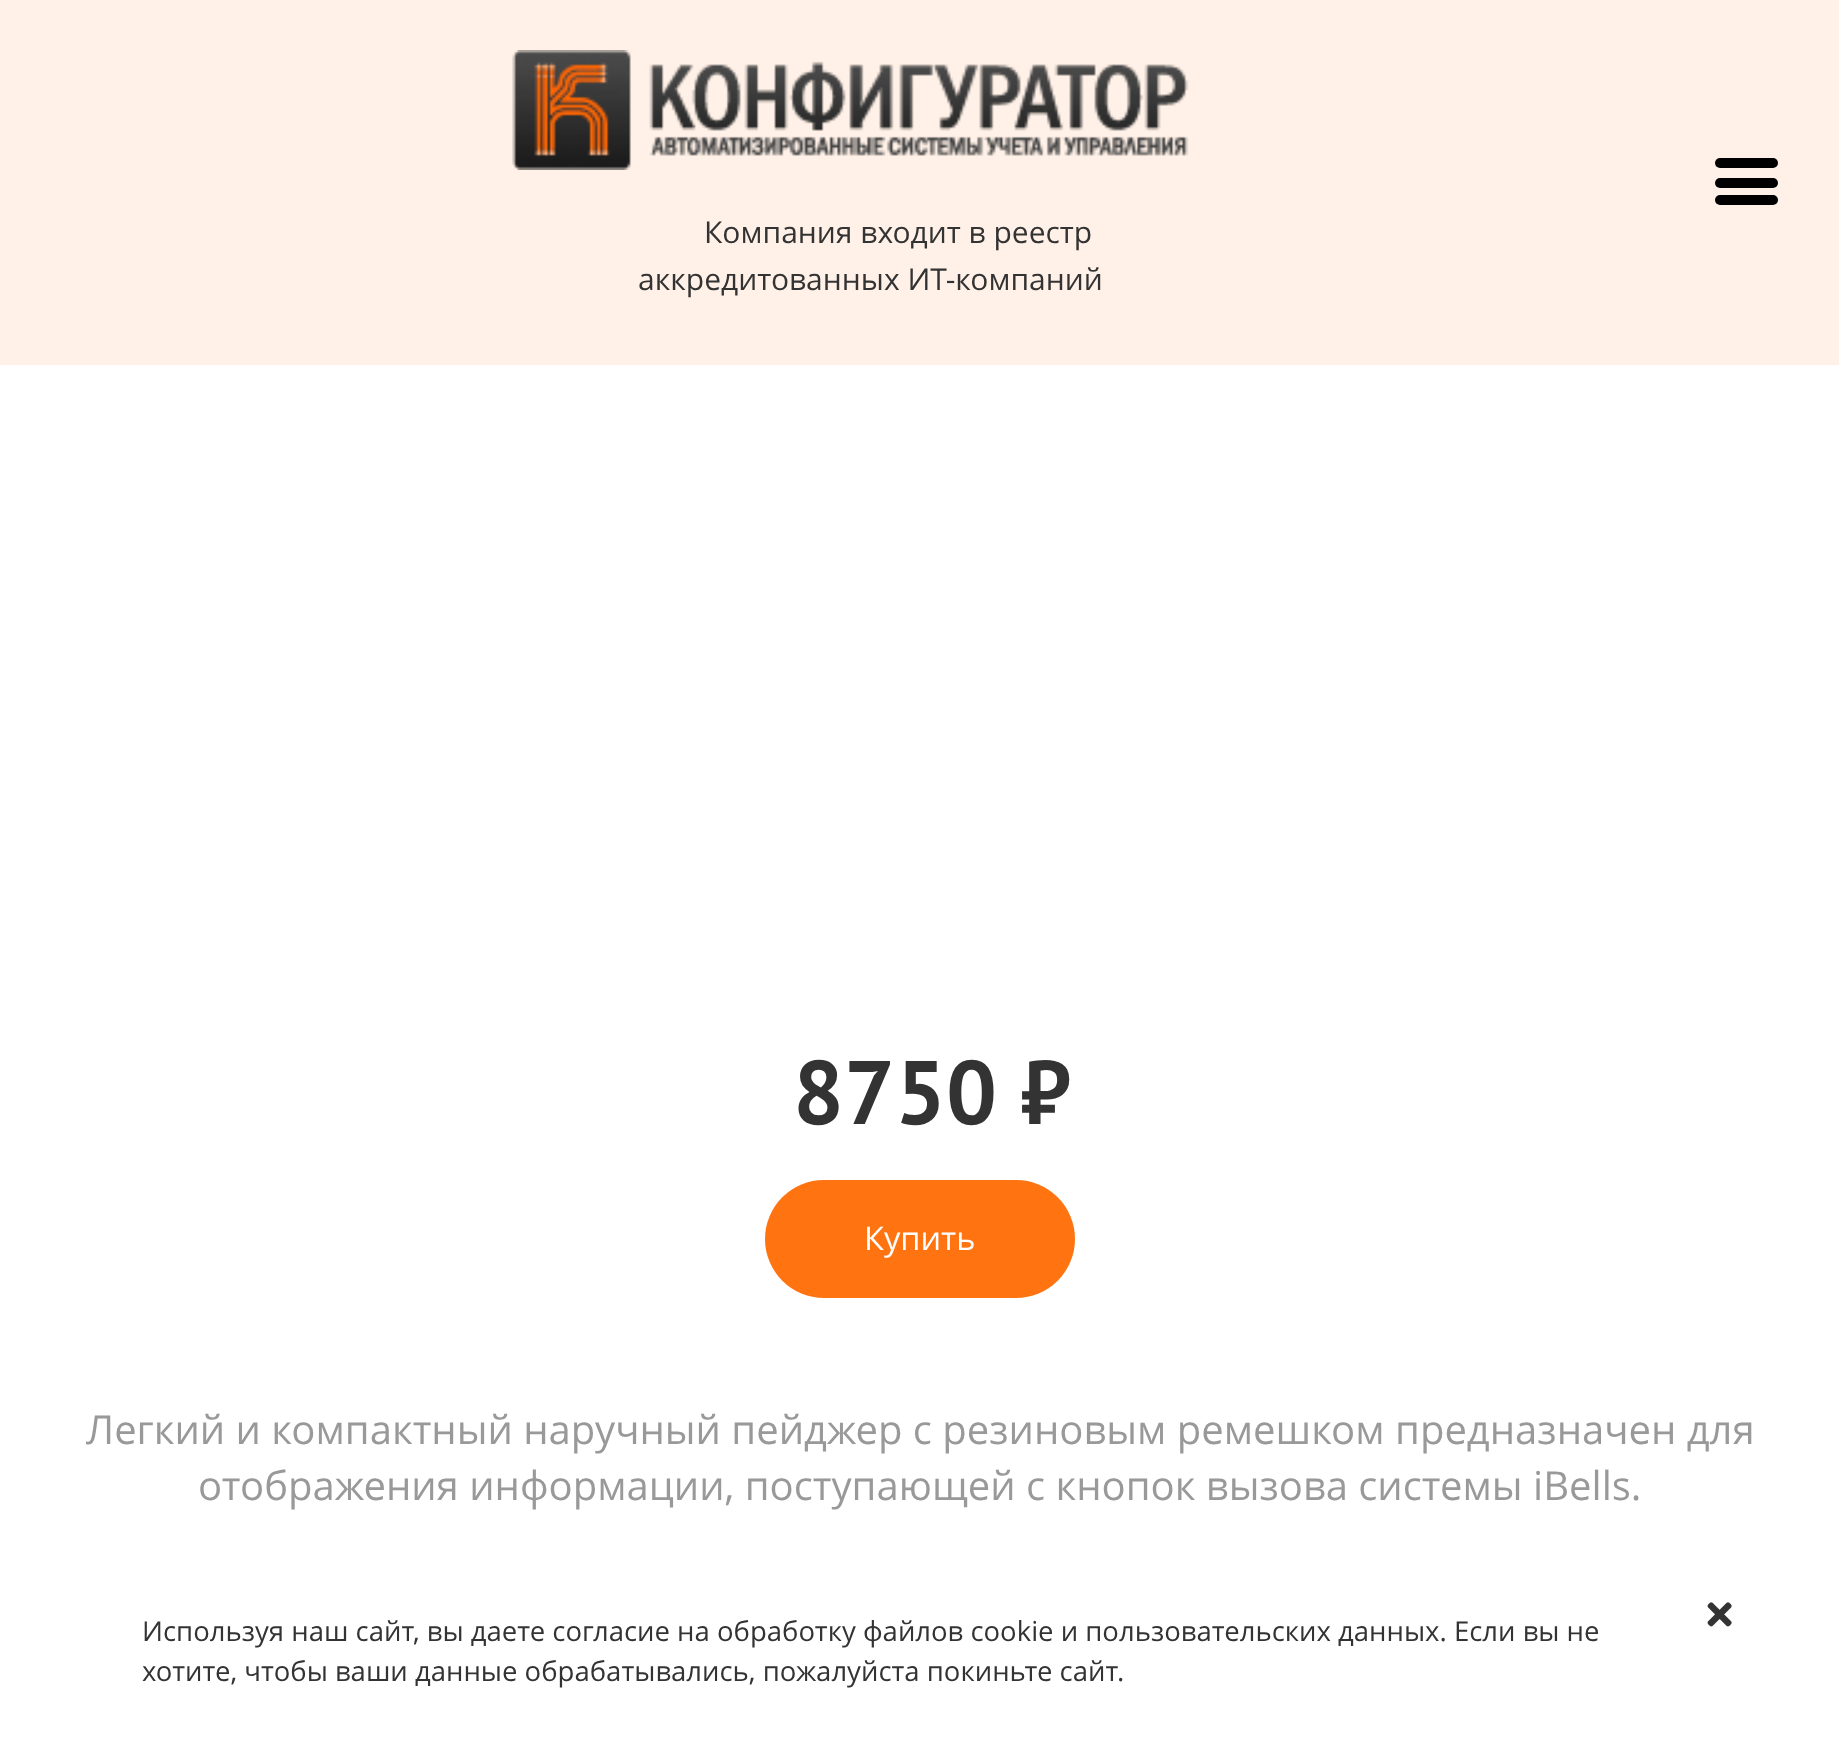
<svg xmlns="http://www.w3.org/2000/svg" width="1839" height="1739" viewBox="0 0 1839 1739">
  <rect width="100%" height="100%" fill="#fff"/>
  <path d="M0 0h1839v365H0z" fill="#fff1e7"/>
  <rect x="1715" y="158" width="63" height="10" rx="5" fill="#000"/>
  <rect x="1715" y="178" width="63" height="10" rx="5" fill="#000"/>
  <rect x="1715" y="195" width="63" height="10" rx="5" fill="#000"/>
  <image x="512" y="50" width="677" height="120" href="img/1.png"/>
  <rect x="765" y="1180" width="310" height="118" rx="59" fill="#ff7310"/>
  <image x="1707" y="1602" width="25" height="25" href="img/2.png"/>
  <g font-family="Open Sans" font-size="30" fill="#333">
    <text x="704" y="243">Компания входит в реестр</text>
    <text x="638" y="290">аккредитованных ИТ-компаний</text>
  </g>
  <text x="793" y="1124" font-family="PT Sans" font-size="90" font-weight="bold" fill="#333">8750 ₽</text>
  <text x="864" y="1250" font-family="Open Sans" font-size="32.5" fill="#fff">Купить</text>
  <g font-family="Open Sans" font-size="40" fill="#999">
    <text x="86" y="1444">Легкий и компактный наручный пейджер с резиновым ремешком предназначен для</text>
    <text x="198" y="1500">отображения информации, поступающей с кнопок вызова системы iBells.</text>
  </g>
  <g font-family="Open Sans" font-size="27.5" fill="#333">
    <text x="142" y="1641">Используя наш сайт, вы даете согласие на обработку файлов cookie и пользовательских данных. Если вы не</text>
    <text x="142" y="1681">хотите, чтобы ваши данные обрабатывались, пожалуйста покиньте сайт.</text>
  </g>
</svg>
